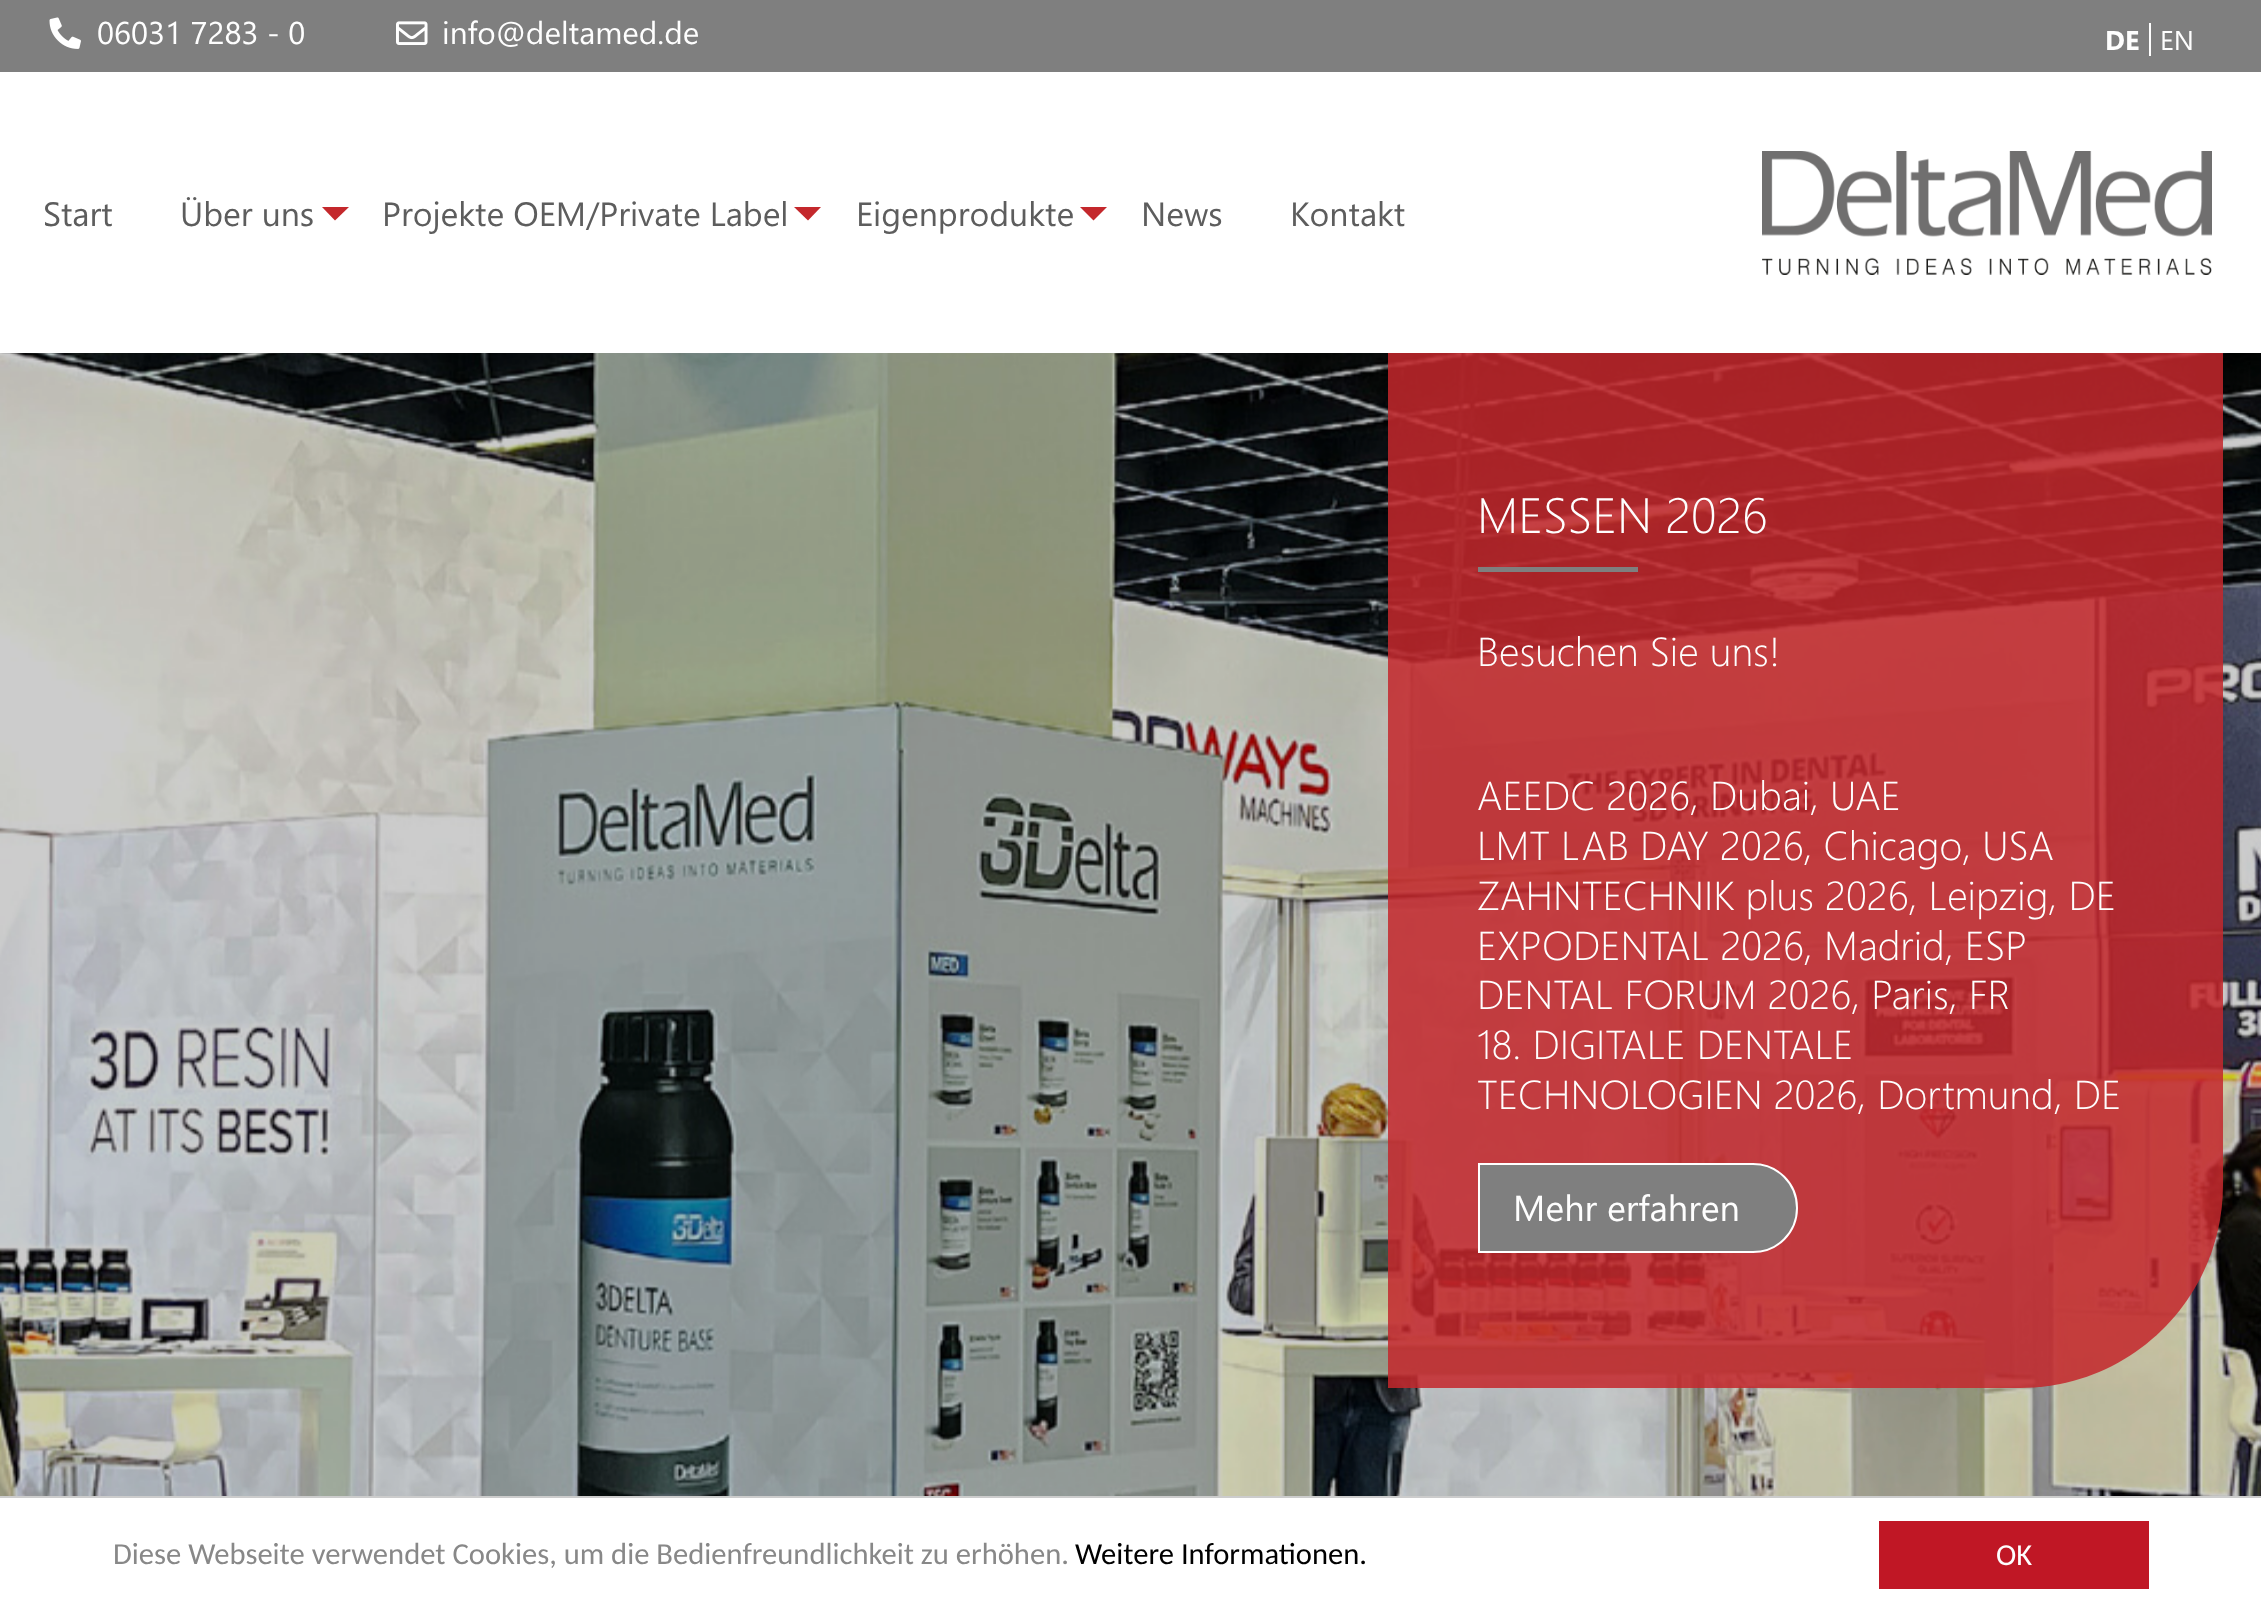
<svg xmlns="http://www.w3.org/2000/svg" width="2261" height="1609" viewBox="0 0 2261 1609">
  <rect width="100%" height="100%" fill="#fff"/>
  <image x="0" y="353" width="2261" height="1143" href="img/4.png"/>
  <path d="M1388 349H2223V1185C2223 1297 2132 1388 2020 1388H1388Z" fill="#c4282cdb"/>
  <path d="M1388 349h835v4H1388z" fill="#fff"/>
  <path d="M0 0h2261v72H0z" fill="#7f7f7f"/>
  <image x="49" y="17" width="32" height="32" href="img/1.png"/>
  <image x="396" y="21" width="32" height="24" href="img/2.png"/>
  <path d="M2149 23h2v33H2149z" fill="#fff"/>
  <path d="M322 207H349L335 220.5Z" fill="#c4282c"/>
  <path d="M794 207H821L808 220.5Z" fill="#c4282c"/>
  <path d="M1080 207H1107L1093.5 220.5Z" fill="#c4282c"/>
  <image x="1762" y="151" width="450" height="124" href="img/3.png"/>
  <path d="M1478 567h160v5H1478z" fill="#7f7f7f"/>
  <path d="M1479 1164H1753C1777.5 1164 1797 1183.5 1797 1208C1797 1232.5 1777.5 1252 1753 1252H1479Z" fill="#7f7f7f" stroke="#fff" stroke-width="2"/>
  <path d="M0 1496h2261v2H0z" fill="#ccc"/>
  <path d="M1879 1521h270v68H1879z" fill="#c01725"/>
  <g font-family="Segoe UI" font-size="31.5" fill="#fefefe">
    <text x="97" y="44">06031 7283 - 0</text>
    <text x="442" y="44">info@deltamed.de</text>
  </g>
  <text x="2105" y="50" font-family="Segoe UI" font-size="27" font-weight="bold" fill="#fefefe">DE</text>
  <text x="2160" y="50" font-family="Segoe UI" font-size="27" fill="#fefefe">EN</text>
  <g font-family="Segoe UI" font-size="33.75" fill="#5d5d5d">
    <text x="43" y="226">Start</text>
    <text x="180" y="226">Über uns</text>
    <text x="382" y="226">Projekte OEM/Private Label</text>
    <text x="856" y="226">Eigenprodukte</text>
    <text x="1141" y="226">News</text>
    <text x="1290" y="226">Kontakt</text>
  </g>
  <text x="1477" y="533" font-family="Segoe UI" font-size="49.5" font-weight="300" fill="#fefefe">MESSEN 2026</text>
  <g font-family="Segoe UI" font-size="40.5" font-weight="300" fill="#fefefe">
    <text x="1477" y="666">Besuchen Sie uns!</text>
    <text x="1477" y="810">AEEDC 2026, Dubai, UAE</text>
    <text x="1477" y="860">LMT LAB DAY 2026, Chicago, USA</text>
    <text x="1477" y="910">ZAHNTECHNIK plus 2026, Leipzig, DE</text>
    <text x="1477" y="960">EXPODENTAL 2026, Madrid, ESP</text>
    <text x="1477" y="1009">DENTAL FORUM 2026, Paris, FR</text>
    <text x="1477" y="1059">18. DIGITALE DENTALE</text>
    <text x="1477" y="1109">TECHNOLOGIEN 2026, Dortmund, DE</text>
  </g>
  <text x="1513" y="1221" font-family="Segoe UI" font-size="36" fill="#fefefe">Mehr erfahren</text>
  <text x="113" y="1564" font-family="Carlito" font-size="30.6" fill="#888">Diese Webseite verwendet Cookies, um die Bedienfreundlichkeit zu erhöhen.</text>
  <text x="1075" y="1564" font-family="Carlito" font-size="30.6" fill="#000">Weitere Informationen.</text>
  <text x="1996" y="1565" font-family="Carlito" font-size="30.6" fill="#fefefe">OK</text>
</svg>
